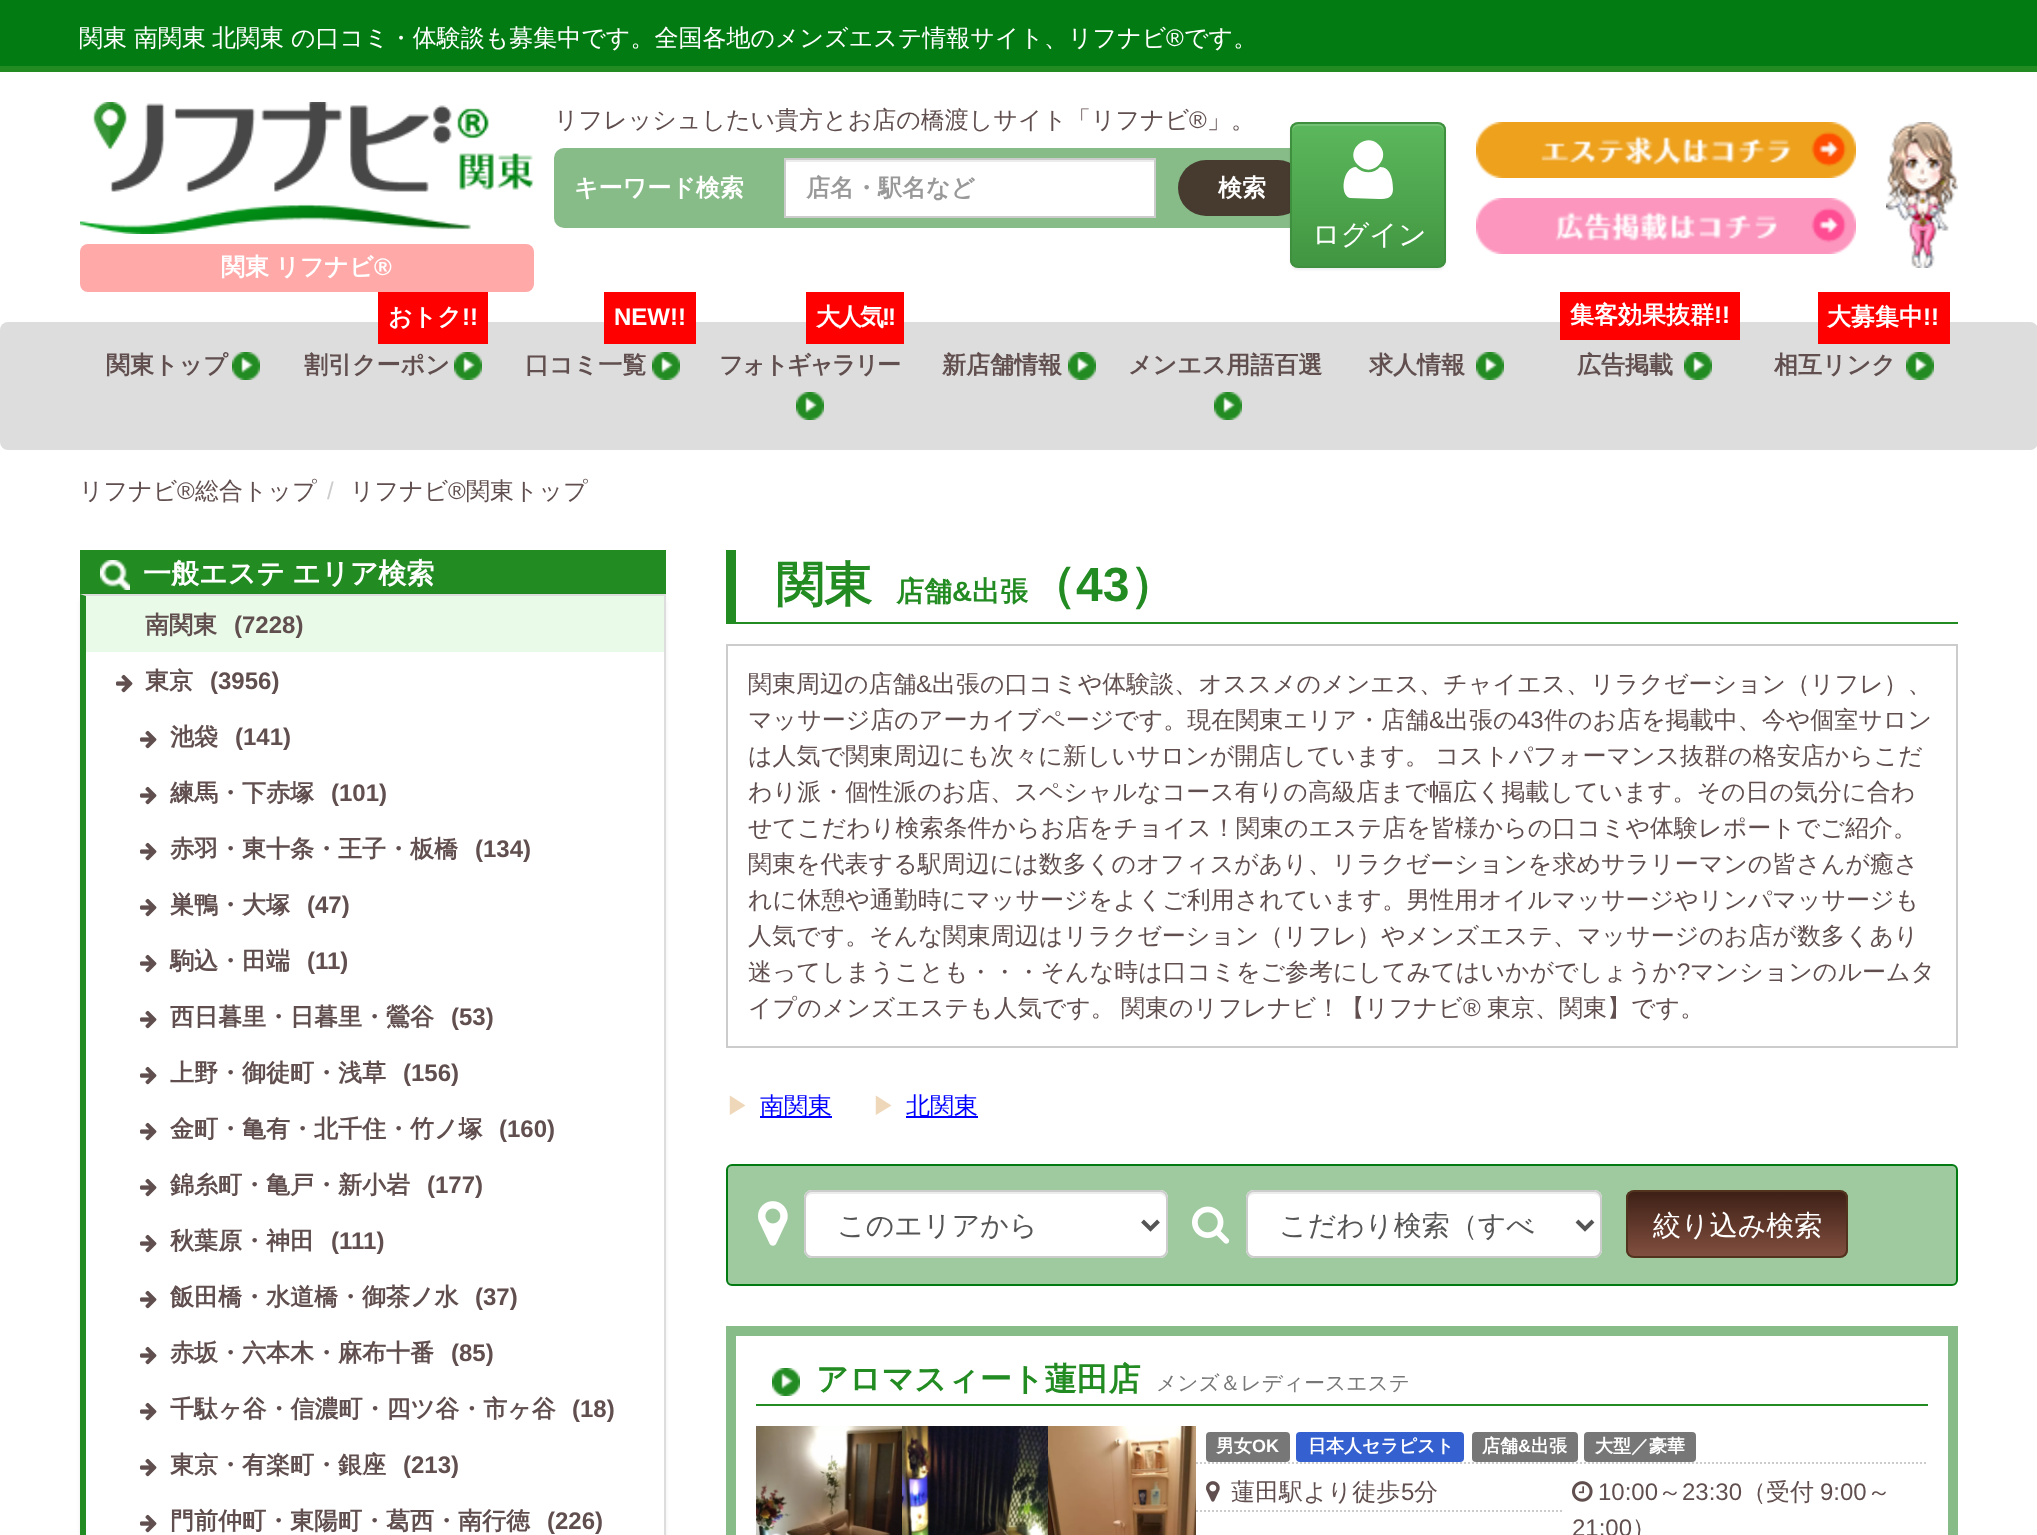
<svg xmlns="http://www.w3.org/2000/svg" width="2037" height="1535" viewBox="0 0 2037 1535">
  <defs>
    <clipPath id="clip1"><rect x="1290" y="122" width="156" height="146" rx="8"/></clipPath>
    <linearGradient id="g1" gradientUnits="userSpaceOnUse" x1="1368" y1="124" x2="1368" y2="266"><stop offset="0" stop-color="#5cb85c"/><stop offset="1" stop-color="#419641"/></linearGradient>
    <clipPath id="clip2"><rect x="1626" y="1190" width="222" height="68" rx="8"/></clipPath>
    <linearGradient id="g2" gradientUnits="userSpaceOnUse" x1="1737" y1="1192" x2="1737" y2="1256"><stop offset="0" stop-color="#3e2016"/><stop offset="1" stop-color="#814f3f"/></linearGradient>
  </defs>
  <rect width="100%" height="100%" fill="#fff"/>
  <path d="M0 0h2037v66H0z" fill="#027b12"/>
  <path d="M0 66h2037v6H0z" fill="#228b22"/>
  <rect x="554" y="148" width="772" height="80" rx="10" fill="#87bb87"/>
  <path d="M786 162h368v54H786z" fill="#fff"/>
  <path d="M786 160h368v2H786z" fill="#ececec"/>
  <path d="M785 159h370v58H785z" fill="none" stroke="#ccc" stroke-width="2"/>
  <rect x="1178" y="160" width="128" height="56" rx="28" fill="#473b30"/>
  <rect x="1290" y="124" width="156" height="146" rx="8" fill="#00000012" filter="blur(1px)"/>
  <g clip-path="url(#clip1)">
    <path d="M1290 124h156v142H1290z" fill="url(#g1)"/>
  </g>
  <path d="M1298 126H1438C1441 126 1444 129 1444 132V130C1444 127 1441 124 1438 124H1298C1295 124 1292 127 1292 130V132C1292 129 1295 126 1298 126Z" fill="#74c374"/>
  <rect x="1291" y="123" width="154" height="144" rx="7" fill="none" stroke="#3e8f3e" stroke-width="2"/>
  <path d="M1393 189C1393 198 1387 199 1379 199L1350 198C1339 195 1343 167 1356 167C1363 174 1374 174 1380 167C1391 167 1393 181 1393 189ZM1379 145C1392 158 1372 179 1358 165C1344 152 1365 131 1379 145Z" fill="#fff"/>
  <image x="1476" y="122" width="380" height="56" href="img/1.png"/>
  <image x="1476" y="198" width="380" height="56" href="img/2.png"/>
  <image x="1886" y="122" width="72" height="146" href="img/3.png"/>
  <image x="80" y="102" width="454" height="132" href="img/4.png"/>
  <rect x="80" y="244" width="454" height="48" rx="8" fill="#ffa9a9"/>
  <rect y="322" width="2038" height="128" rx="8" fill="#ddd"/>
  <image x="232" y="352" width="28" height="28" href="img/5.png"/>
  <path d="M378 292h110v52H378z" fill="#f00"/>
  <image x="454" y="352" width="28" height="28" href="img/5.png"/>
  <path d="M604 292h92v52H604z" fill="#f00"/>
  <image x="652" y="352" width="28" height="28" href="img/5.png"/>
  <path d="M806 292h98v52H806z" fill="#f00"/>
  <image x="796" y="392" width="28" height="28" href="img/5.png"/>
  <image x="1068" y="352" width="28" height="28" href="img/5.png"/>
  <image x="1214" y="392" width="28" height="28" href="img/5.png"/>
  <image x="1476" y="352" width="28" height="28" href="img/5.png"/>
  <path d="M1560 292h180v48H1560z" fill="#f00"/>
  <image x="1684" y="352" width="28" height="28" href="img/5.png"/>
  <path d="M1818 292h132v52H1818z" fill="#f00"/>
  <image x="1906" y="352" width="28" height="28" href="img/5.png"/>
  <path d="M80 550h586v44H80z" fill="#228b22"/>
  <rect x="80" y="596" width="586" height="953" rx="8" fill="#00000012" filter="blur(2px)"/>
  <image x="100" y="560" width="30" height="30" href="img/6.png"/>
  <path d="M86 596h578v56H86z" fill="#e9fae9"/>
  <path d="M80 594H666L664 596H86Z" fill="#ddd"/>
  <path d="M664 594h2v941H664z" fill="#ddd"/>
  <path d="M80 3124V594L86 596V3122Z" fill="#228b22"/>
  <path d="M86 652h578v883H86z" fill="#fff"/>
  <image x="116" y="674" width="17" height="19" href="img/7.png"/>
  <image x="140" y="730" width="17" height="19" href="img/7.png"/>
  <image x="140" y="786" width="17" height="19" href="img/7.png"/>
  <image x="140" y="842" width="17" height="19" href="img/7.png"/>
  <image x="140" y="898" width="17" height="19" href="img/7.png"/>
  <image x="140" y="954" width="17" height="19" href="img/7.png"/>
  <image x="140" y="1010" width="17" height="19" href="img/7.png"/>
  <image x="140" y="1066" width="17" height="19" href="img/7.png"/>
  <image x="140" y="1122" width="17" height="19" href="img/7.png"/>
  <image x="140" y="1178" width="17" height="19" href="img/7.png"/>
  <image x="140" y="1234" width="17" height="19" href="img/7.png"/>
  <image x="140" y="1290" width="17" height="19" href="img/7.png"/>
  <image x="140" y="1346" width="17" height="19" href="img/7.png"/>
  <image x="140" y="1402" width="17" height="19" href="img/7.png"/>
  <image x="140" y="1458" width="17" height="19" href="img/7.png"/>
  <image x="140" y="1514" width="17" height="19" href="img/7.png"/>
  <path d="M736 622h1222v2H736z" fill="#228b22"/>
  <path d="M726 550h10v74H726z" fill="#228b22"/>
  <path d="M727 645h1230v402H727z" fill="none" stroke="#ccc" stroke-width="2"/>
  <path d="M760 1116h72v2H760z" fill="#00f"/>
  <path d="M906 1116h72v2H906z" fill="#00f"/>
  <rect x="727" y="1165" width="1230" height="120" rx="5" fill="#9fc99f" stroke="#027b12" stroke-width="2"/>
  <image x="758" y="1201" width="30" height="45" href="img/8.png"/>
  <rect x="804" y="1190" width="364" height="68" rx="8" fill="#fff"/>
  <path d="M812 1194H1160C1163 1194 1166 1197 1166 1200V1198C1166 1195 1163 1192 1160 1192H812C809 1192 806 1195 806 1198V1200C806 1197 809 1194 812 1194Z" fill="#ececec"/>
  <rect x="805" y="1191" width="362" height="66" rx="7" fill="none" stroke="#ccc" stroke-width="2"/>
  <path d="M1142.5 1221L1150.5 1229L1158.5 1221" fill="none" stroke="#555" stroke-width="4"/>
  <image x="1192" y="1206" width="38" height="38" href="img/9.png"/>
  <rect x="1246" y="1190" width="356" height="68" rx="8" fill="#fff"/>
  <path d="M1254 1194H1594C1597 1194 1600 1197 1600 1200V1198C1600 1195 1597 1192 1594 1192H1254C1251 1192 1248 1195 1248 1198V1200C1248 1197 1251 1194 1254 1194Z" fill="#ececec"/>
  <rect x="1247" y="1191" width="354" height="66" rx="7" fill="none" stroke="#ccc" stroke-width="2"/>
  <path d="M1577 1221L1585 1229L1593 1221" fill="none" stroke="#555" stroke-width="4"/>
  <g clip-path="url(#clip2)">
    <path d="M1626 1192h222v64H1626z" fill="url(#g2)"/>
  </g>
  <rect x="1627" y="1191" width="220" height="66" rx="7" fill="none" stroke="#51331e" stroke-width="2"/>
  <path d="M731 1331h1222v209H731z" fill="none" stroke="#87bb87" stroke-width="10"/>
  <path d="M756 1404h1172v2H756z" fill="#228b22"/>
  <image x="772" y="1368" width="28" height="28" href="img/10.png"/>
  <image x="756" y="1426" width="146" height="109" href="img/11.png"/>
  <image x="902" y="1426" width="146" height="109" href="img/12.png"/>
  <image x="1048" y="1426" width="148" height="109" href="img/13.png"/>
  <path d="M1196 1463H1928" fill="none" stroke="#ccc" stroke-width="2" stroke-dasharray="2 2"/>
  <rect x="1206" y="1432" width="84" height="30" rx="4" fill="#777"/>
  <rect x="1296" y="1432" width="168" height="30" rx="4" fill="#3460d0"/>
  <rect x="1472" y="1432" width="106" height="30" rx="4" fill="#777"/>
  <rect x="1584" y="1432" width="112" height="30" rx="4" fill="#777"/>
  <path d="M1196 1511H1562" fill="none" stroke="#ccc" stroke-width="2" stroke-dasharray="2 2"/>
  <image x="1206" y="1481" width="14" height="21" href="img/14.png"/>
  <image x="1572" y="1481" width="21" height="21" href="img/15.png"/>
  <g font-family="WenQuanYi Zen Hei" font-size="24" font-weight="500" fill="#fff">
    <text x="79" y="46">関東</text>
    <text x="134" y="46">南関東</text>
    <text x="212" y="46">北関東</text>
    <text x="291" y="46">の口コミ・体験談も募集中です。全国各地のメンズエステ情報サイト、リフナビ</text>
  </g>
  <text x="1166" y="46" font-family="Liberation Sans" font-size="24" fill="#fff">®</text>
  <text x="1184" y="46" font-family="WenQuanYi Zen Hei" font-size="24" font-weight="500" fill="#fff">です。</text>
  <text x="554" y="128" font-family="WenQuanYi Zen Hei" font-size="24" font-weight="500" fill="#614f4f">リフレッシュしたい貴方とお店の橋渡しサイト「リフナビ</text>
  <text x="1189" y="128" font-family="Liberation Sans" font-size="24" fill="#614f4f">®</text>
  <text x="1207" y="128" font-family="WenQuanYi Zen Hei" font-size="24" font-weight="500" fill="#614f4f">」。</text>
  <text x="574" y="196" font-family="WenQuanYi Zen Hei" font-size="24" font-weight="bold" fill="#fff">キーワード検索</text>
  <text x="806" y="196" font-family="WenQuanYi Zen Hei" font-size="24" font-weight="bold" fill="#999">店名・駅名など</text>
  <text x="1218" y="196" font-family="WenQuanYi Zen Hei" font-size="24" font-weight="bold" fill="#fff">検索</text>
  <text x="1312" y="244" font-family="WenQuanYi Zen Hei" font-size="28" font-weight="500" fill="#fff">ログイン</text>
  <text x="221" y="275" word-spacing="-1" font-family="WenQuanYi Zen Hei" font-size="24" font-weight="bold" fill="#fff">関東 リフナビ</text>
  <text x="374" y="275" font-family="Liberation Sans" font-size="24" font-weight="bold" fill="#fff">®</text>
  <text x="106" y="373" font-family="WenQuanYi Zen Hei" font-size="24" font-weight="bold" fill="#614f4f">関東トップ</text>
  <text x="388" y="325" font-family="WenQuanYi Zen Hei" font-size="24" font-weight="bold" fill="#fff">おトク</text>
  <text x="462" y="325" font-family="Liberation Sans" font-size="24" font-weight="bold" fill="#fff">!!</text>
  <text x="304" y="373" font-family="WenQuanYi Zen Hei" font-size="24" font-weight="bold" fill="#614f4f">割引クーポン</text>
  <text x="614" y="325" font-family="Liberation Sans" font-size="24" font-weight="bold" fill="#fff">NEW!!</text>
  <text x="525" y="373" font-family="WenQuanYi Zen Hei" font-size="24" font-weight="bold" fill="#614f4f">口コミ一覧</text>
  <text x="816" y="325" font-family="WenQuanYi Zen Hei" font-size="24" font-weight="bold" letter-spacing="-2" fill="#fff">大人気</text>
  <text x="882" y="325" font-family="Liberation Sans" font-size="24" font-weight="bold" letter-spacing="-2" fill="#fff">!!</text>
  <text x="719" y="373" font-family="WenQuanYi Zen Hei" font-size="24" font-weight="bold" letter-spacing="-2" fill="#614f4f">フォトギャラリー</text>
  <g font-family="WenQuanYi Zen Hei" font-size="24" font-weight="bold" fill="#614f4f">
    <text x="942" y="373">新店舗情報</text>
    <text x="1128" y="373">メンエス用語百選</text>
    <text x="1369" y="373">求人情報</text>
  </g>
  <text x="1570" y="323" font-family="WenQuanYi Zen Hei" font-size="24" font-weight="bold" fill="#fff">集客効果抜群</text>
  <text x="1714" y="323" font-family="Liberation Sans" font-size="24" font-weight="bold" fill="#fff">!!</text>
  <text x="1577" y="373" font-family="WenQuanYi Zen Hei" font-size="24" font-weight="bold" fill="#614f4f">広告掲載</text>
  <text x="1827" y="325" font-family="WenQuanYi Zen Hei" font-size="24" font-weight="bold" fill="#fff">大募集中</text>
  <text x="1923" y="325" font-family="Liberation Sans" font-size="24" font-weight="bold" fill="#fff">!!</text>
  <text x="1774" y="373" font-family="WenQuanYi Zen Hei" font-size="24" font-weight="bold" fill="#614f4f">相互リンク</text>
  <text x="79" y="499" font-family="WenQuanYi Zen Hei" font-size="24" font-weight="500" fill="#614f4f">リフナビ</text>
  <text x="177" y="499" font-family="Liberation Sans" font-size="24" fill="#614f4f">®</text>
  <text x="195" y="499" font-family="WenQuanYi Zen Hei" font-size="24" font-weight="500" fill="#614f4f">総合トップ</text>
  <text x="327" y="499" font-family="Liberation Sans" font-size="24" fill="#ccc">/</text>
  <text x="350" y="499" font-family="WenQuanYi Zen Hei" font-size="24" font-weight="500" fill="#614f4f">リフナビ</text>
  <text x="448" y="499" font-family="Liberation Sans" font-size="24" fill="#614f4f">®</text>
  <text x="466" y="499" font-family="WenQuanYi Zen Hei" font-size="24" font-weight="500" fill="#614f4f">関東トップ</text>
  <text x="143" y="583" word-spacing="-1" font-family="WenQuanYi Zen Hei" font-size="28" font-weight="bold" fill="#fff">一般エステ エリア検索</text>
  <text x="145" y="633" font-family="WenQuanYi Zen Hei" font-size="24" font-weight="bold" fill="#614f4f">南関東</text>
  <text x="234" y="633" font-family="Liberation Sans" font-size="24" font-weight="bold" fill="#614f4f">(7228)</text>
  <text x="145" y="689" font-family="WenQuanYi Zen Hei" font-size="24" font-weight="bold" fill="#614f4f">東京</text>
  <text x="210" y="689" font-family="Liberation Sans" font-size="24" font-weight="bold" fill="#614f4f">(3956)</text>
  <text x="170" y="745" font-family="WenQuanYi Zen Hei" font-size="24" font-weight="bold" fill="#614f4f">池袋</text>
  <text x="235" y="745" font-family="Liberation Sans" font-size="24" font-weight="bold" fill="#614f4f">(141)</text>
  <text x="170" y="801" font-family="WenQuanYi Zen Hei" font-size="24" font-weight="bold" fill="#614f4f">練馬・下赤塚</text>
  <text x="331" y="801" font-family="Liberation Sans" font-size="24" font-weight="bold" fill="#614f4f">(101)</text>
  <text x="170" y="857" font-family="WenQuanYi Zen Hei" font-size="24" font-weight="bold" fill="#614f4f">赤羽・東十条・王子・板橋</text>
  <text x="475" y="857" font-family="Liberation Sans" font-size="24" font-weight="bold" fill="#614f4f">(134)</text>
  <text x="170" y="913" font-family="WenQuanYi Zen Hei" font-size="24" font-weight="bold" fill="#614f4f">巣鴨・大塚</text>
  <text x="307" y="913" font-family="Liberation Sans" font-size="24" font-weight="bold" fill="#614f4f">(47)</text>
  <text x="170" y="969" font-family="WenQuanYi Zen Hei" font-size="24" font-weight="bold" fill="#614f4f">駒込・田端</text>
  <text x="307" y="969" font-family="Liberation Sans" font-size="24" font-weight="bold" fill="#614f4f">(11)</text>
  <text x="170" y="1025" font-family="WenQuanYi Zen Hei" font-size="24" font-weight="bold" fill="#614f4f">西日暮里・日暮里・鶯谷</text>
  <text x="451" y="1025" font-family="Liberation Sans" font-size="24" font-weight="bold" fill="#614f4f">(53)</text>
  <text x="170" y="1081" font-family="WenQuanYi Zen Hei" font-size="24" font-weight="bold" fill="#614f4f">上野・御徒町・浅草</text>
  <text x="403" y="1081" font-family="Liberation Sans" font-size="24" font-weight="bold" fill="#614f4f">(156)</text>
  <text x="170" y="1137" font-family="WenQuanYi Zen Hei" font-size="24" font-weight="bold" fill="#614f4f">金町・亀有・北千住・竹ノ塚</text>
  <text x="499" y="1137" font-family="Liberation Sans" font-size="24" font-weight="bold" fill="#614f4f">(160)</text>
  <text x="170" y="1193" font-family="WenQuanYi Zen Hei" font-size="24" font-weight="bold" fill="#614f4f">錦糸町・亀戸・新小岩</text>
  <text x="427" y="1193" font-family="Liberation Sans" font-size="24" font-weight="bold" fill="#614f4f">(177)</text>
  <text x="170" y="1249" font-family="WenQuanYi Zen Hei" font-size="24" font-weight="bold" fill="#614f4f">秋葉原・神田</text>
  <text x="331" y="1249" font-family="Liberation Sans" font-size="24" font-weight="bold" fill="#614f4f">(111)</text>
  <text x="170" y="1305" font-family="WenQuanYi Zen Hei" font-size="24" font-weight="bold" fill="#614f4f">飯田橋・水道橋・御茶ノ水</text>
  <text x="475" y="1305" font-family="Liberation Sans" font-size="24" font-weight="bold" fill="#614f4f">(37)</text>
  <text x="170" y="1361" font-family="WenQuanYi Zen Hei" font-size="24" font-weight="bold" fill="#614f4f">赤坂・六本木・麻布十番</text>
  <text x="451" y="1361" font-family="Liberation Sans" font-size="24" font-weight="bold" fill="#614f4f">(85)</text>
  <text x="170" y="1417" font-family="WenQuanYi Zen Hei" font-size="24" font-weight="bold" fill="#614f4f">千駄ヶ谷・信濃町・四ツ谷・市ヶ谷</text>
  <text x="572" y="1417" font-family="Liberation Sans" font-size="24" font-weight="bold" fill="#614f4f">(18)</text>
  <text x="170" y="1473" font-family="WenQuanYi Zen Hei" font-size="24" font-weight="bold" fill="#614f4f">東京・有楽町・銀座</text>
  <text x="403" y="1473" font-family="Liberation Sans" font-size="24" font-weight="bold" fill="#614f4f">(213)</text>
  <text x="170" y="1529" font-family="WenQuanYi Zen Hei" font-size="24" font-weight="bold" fill="#614f4f">門前仲町・東陽町・葛西・南行徳</text>
  <text x="547" y="1529" font-family="Liberation Sans" font-size="24" font-weight="bold" fill="#614f4f">(226)</text>
  <text x="776" y="601" font-family="WenQuanYi Zen Hei" font-size="48" font-weight="bold" fill="#228b22">関東</text>
  <text x="896" y="601" font-family="WenQuanYi Zen Hei" font-size="28" font-weight="bold" fill="#228b22">店舗</text>
  <text x="952" y="601" font-family="Liberation Sans" font-size="28" font-weight="bold" fill="#228b22">&amp;</text>
  <text x="972" y="601" font-family="WenQuanYi Zen Hei" font-size="28" font-weight="bold" fill="#228b22">出張</text>
  <text x="1028" y="601" font-family="WenQuanYi Zen Hei" font-size="48" font-weight="bold" fill="#228b22">（</text>
  <text x="1076" y="601" font-family="Liberation Sans" font-size="48" font-weight="bold" fill="#228b22">43</text>
  <text x="1129" y="601" font-family="WenQuanYi Zen Hei" font-size="48" font-weight="bold" fill="#228b22">）</text>
  <text x="748" y="692" font-family="WenQuanYi Zen Hei" font-size="24" font-weight="500" fill="#614f4f">関東周辺の店舗</text>
  <text x="916" y="692" font-family="Liberation Sans" font-size="24" fill="#614f4f">&amp;</text>
  <g font-family="WenQuanYi Zen Hei" font-size="24" font-weight="500" fill="#614f4f">
    <text x="932" y="692">出張の口コミや体験談、オススメのメンエス、チャイエス、リラクゼーション（リフレ）、</text>
    <text x="748" y="728">マッサージ店のアーカイブページです。現在関東エリア・店舗</text>
  </g>
  <text x="1429" y="728" font-family="Liberation Sans" font-size="24" fill="#614f4f">&amp;</text>
  <text x="1445" y="728" font-family="WenQuanYi Zen Hei" font-size="24" font-weight="500" fill="#614f4f">出張の</text>
  <text x="1517" y="728" font-family="Liberation Sans" font-size="24" fill="#614f4f">43</text>
  <g font-family="WenQuanYi Zen Hei" font-size="24" font-weight="500" fill="#614f4f">
    <text x="1544" y="728">件のお店を掲載中、今や個室サロン</text>
    <text x="748" y="764">は人気で関東周辺にも次々に新しいサロンが開店しています。</text>
    <text x="1435" y="764">コストパフォーマンス抜群の格安店からこだ</text>
    <text x="748" y="800">わり派・個性派のお店、スペシャルなコース有りの高級店まで幅広く掲載しています。その日の気分に合わ</text>
    <text x="748" y="836">せてこだわり検索条件からお店をチョイス！関東のエステ店を皆様からの口コミや体験レポートでご紹介。</text>
    <text x="748" y="872">関東を代表する駅周辺には数多くのオフィスがあり、リラクゼーションを求めサラリーマンの皆さんが癒さ</text>
    <text x="748" y="908">れに休憩や通勤時にマッサージをよくご利用されています。男性用オイルマッサージやリンパマッサージも</text>
    <text x="748" y="944">人気です。そんな関東周辺はリラクゼーション（リフレ）やメンズエステ、マッサージのお店が数多くあり</text>
    <text x="748" y="980">迷ってしまうことも・・・そんな時は口コミをご参考にしてみてはいかがでしょうか</text>
  </g>
  <text x="1677" y="980" font-family="Liberation Sans" font-size="24" fill="#614f4f">?</text>
  <g font-family="WenQuanYi Zen Hei" font-size="24" font-weight="500" fill="#614f4f">
    <text x="1690" y="980">マンションのルームタ</text>
    <text x="748" y="1016">イプのメンズエステも人気です。</text>
    <text x="1121" y="1016">関東のリフレナビ！【リフナビ</text>
  </g>
  <text x="1463" y="1016" font-family="Liberation Sans" font-size="24" fill="#614f4f">®</text>
  <text x="1487" y="1016" font-family="WenQuanYi Zen Hei" font-size="24" font-weight="500" fill="#614f4f">東京、関東】です。</text>
  <text x="726" y="1114" font-family="WenQuanYi Zen Hei" font-size="24" font-weight="500" fill="#efd7b9">▶</text>
  <text x="760" y="1114" font-family="WenQuanYi Zen Hei" font-size="24" font-weight="500" fill="#00f">南関東</text>
  <text x="872" y="1114" font-family="WenQuanYi Zen Hei" font-size="24" font-weight="500" fill="#efd7b9">▶</text>
  <text x="906" y="1114" font-family="WenQuanYi Zen Hei" font-size="24" font-weight="500" fill="#00f">北関東</text>
  <g font-family="WenQuanYi Zen Hei" font-size="28" font-weight="500" fill="#555">
    <text x="837" y="1235">このエリアから</text>
    <text x="1279" y="1235">こだわり検索（すべ</text>
  </g>
  <text x="1653" y="1235" font-family="WenQuanYi Zen Hei" font-size="28" font-weight="500" fill="#fff">絞り込み検索</text>
  <text x="816" y="1390" font-family="WenQuanYi Zen Hei" font-size="32" font-weight="bold" fill="#228b22">アロマスィート蓮田店</text>
  <text x="1156" y="1390" font-family="WenQuanYi Zen Hei" font-size="20.75" font-weight="500" fill="#777">メンズ＆レディースエステ</text>
  <text x="1216" y="1452" font-family="WenQuanYi Zen Hei" font-size="18" font-weight="bold" fill="#fff">男女</text>
  <text x="1252" y="1452" font-family="Liberation Sans" font-size="18" font-weight="bold" fill="#fff">OK</text>
  <g font-family="WenQuanYi Zen Hei" font-size="18" font-weight="bold" fill="#fff">
    <text x="1308" y="1452">日本人セラピスト</text>
    <text x="1482" y="1452">店舗</text>
  </g>
  <text x="1518" y="1452" font-family="Liberation Sans" font-size="18" font-weight="bold" fill="#fff">&amp;</text>
  <g font-family="WenQuanYi Zen Hei" font-size="18" font-weight="bold" fill="#fff">
    <text x="1531" y="1452">出張</text>
    <text x="1595" y="1452">大型／豪華</text>
  </g>
  <text x="1231" y="1500" font-family="WenQuanYi Zen Hei" font-size="24" font-weight="500" fill="#614f4f">蓮田駅より徒歩</text>
  <text x="1401" y="1500" font-family="Liberation Sans" font-size="24" fill="#614f4f">5</text>
  <text x="1414" y="1500" font-family="WenQuanYi Zen Hei" font-size="24" font-weight="500" fill="#614f4f">分</text>
  <text x="1598" y="1500" font-family="Liberation Sans" font-size="24" fill="#614f4f">10:00</text>
  <text x="1658" y="1500" font-family="WenQuanYi Zen Hei" font-size="24" font-weight="500" fill="#614f4f">～</text>
  <text x="1682" y="1500" font-family="Liberation Sans" font-size="24" fill="#614f4f">23:30</text>
  <text x="1742" y="1500" font-family="WenQuanYi Zen Hei" font-size="24" font-weight="500" fill="#614f4f">（受付</text>
  <text x="1820" y="1500" font-family="Liberation Sans" font-size="24" fill="#614f4f">9:00</text>
  <text x="1867" y="1500" font-family="WenQuanYi Zen Hei" font-size="24" font-weight="500" fill="#614f4f">～</text>
  <text x="1572" y="1536" font-family="Liberation Sans" font-size="24" fill="#614f4f">21:00</text>
  <text x="1632" y="1536" font-family="WenQuanYi Zen Hei" font-size="24" font-weight="500" fill="#614f4f">）</text>
</svg>
